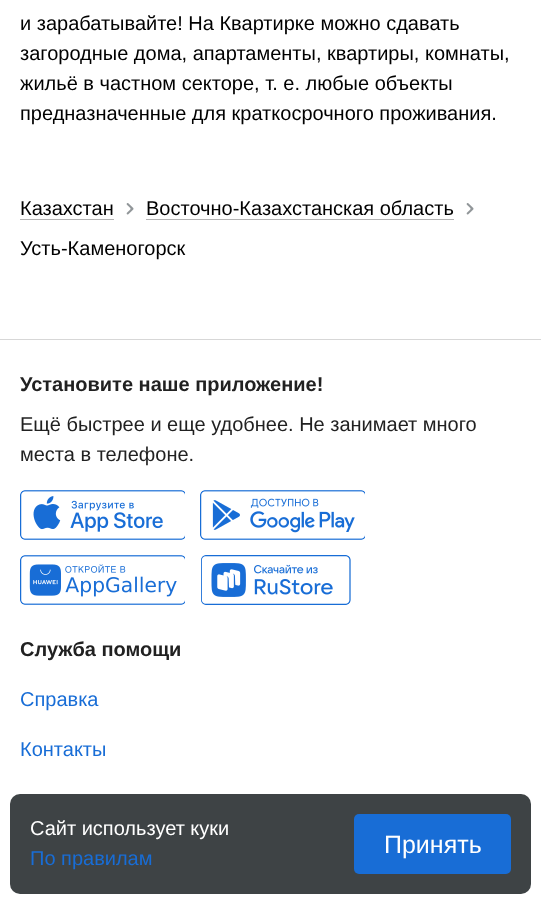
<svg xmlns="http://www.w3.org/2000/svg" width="541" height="903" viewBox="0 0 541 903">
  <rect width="100%" height="100%" fill="#fff"/>
  <image x="126" y="203" width="8" height="12" href="img/1.png"/>
  <path d="M20 219h94v1H20z" fill="#b3b3b3"/>
  <image x="466" y="203" width="8" height="12" href="img/1.png"/>
  <path d="M146 219h308v1H146z" fill="#b3b3b3"/>
  <path d="M0 339h541v1H0z" fill="#d7d7d7"/>
  <image x="20" y="490" width="165" height="50" href="img/2.png"/>
  <image x="200" y="490" width="165" height="50" href="img/3.png"/>
  <image x="20" y="555" width="165" height="50" href="img/4.png"/>
  <image x="201" y="555" width="150" height="50" href="img/5.png"/>
  <rect x="10" y="794" width="521" height="100" rx="10" fill="#3e4345"/>
  <rect x="354" y="814" width="157" height="60" rx="5" fill="#186dd6"/>
  <g font-family="Liberation Sans" font-size="20" fill="#000">
    <text x="20" y="30">и зарабатывайте! На Квартирке можно сдавать</text>
    <text x="20" y="60">загородные дома, апартаменты, квартиры, комнаты,</text>
    <text x="20" y="90">жильё в частном секторе, т. е. любые объекты</text>
    <text x="20" y="120">предназначенные для краткосрочного проживания.</text>
    <text x="20" y="215">Казахстан</text>
    <text x="146" y="215">Восточно-Казахстанская область</text>
    <text x="20" y="255">Усть-Каменогорск</text>
  </g>
  <text x="20" y="391" font-family="Liberation Sans" font-size="20" font-weight="bold" fill="#212121">Установите наше приложение!</text>
  <g font-family="Liberation Sans" font-size="20" fill="#212121">
    <text x="20" y="431">Ещё быстрее и еще удобнее. Не занимает много</text>
    <text x="20" y="461">места в телефоне.</text>
  </g>
  <text x="20" y="656" font-family="Liberation Sans" font-size="20" font-weight="bold" fill="#212121">Служба помощи</text>
  <g font-family="Liberation Sans" font-size="20" fill="#186dd6">
    <text x="20" y="706">Справка</text>
    <text x="20" y="756">Контакты</text>
  </g>
  <text x="30" y="835" font-family="Liberation Sans" font-size="20" fill="#fff">Сайт использует куки</text>
  <text x="30" y="865" font-family="Liberation Sans" font-size="20" fill="#186dd6">По правилам</text>
  <text x="384" y="853" font-family="Liberation Sans" font-size="25" fill="#fff">Принять</text>
</svg>
